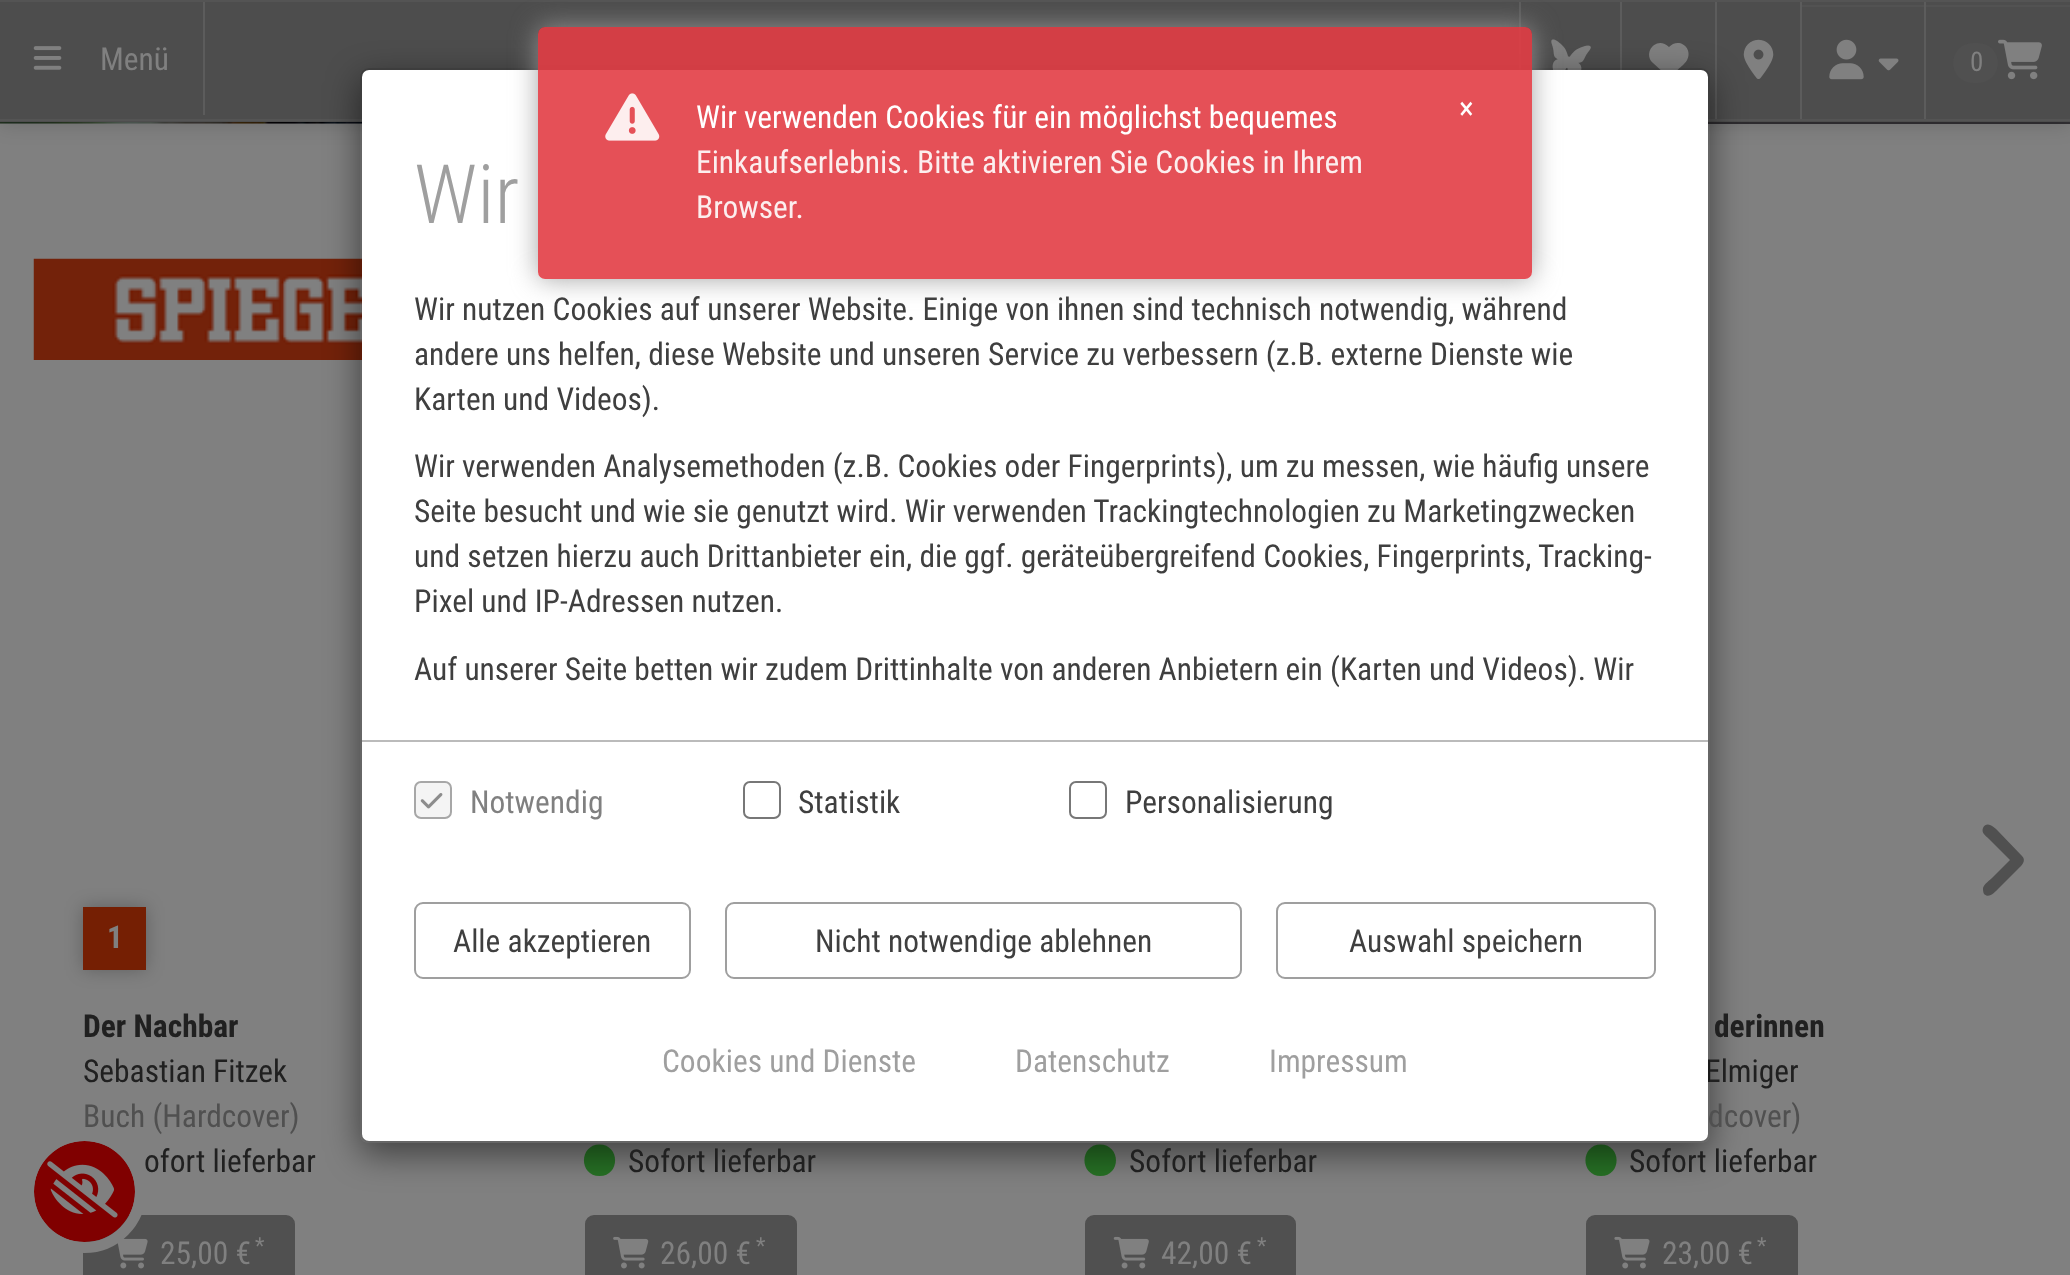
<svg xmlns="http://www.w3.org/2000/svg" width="2070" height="1275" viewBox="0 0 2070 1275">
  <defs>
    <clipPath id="clip1"><path d="M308 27H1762V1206H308ZM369 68H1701C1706 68 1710 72 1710 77V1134C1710 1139 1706 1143 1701 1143H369C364 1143 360 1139 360 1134V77C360 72 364 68 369 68Z" clip-rule="evenodd"/></clipPath>
    <clipPath id="clip2"><path d="M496 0H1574V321H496ZM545 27H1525C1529 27 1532 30 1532 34V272C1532 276 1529 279 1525 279H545C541 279 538 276 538 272V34C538 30 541 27 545 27Z" clip-rule="evenodd"/></clipPath>
  </defs>
  <rect width="100%" height="100%" fill="#808080"/>
  <image x="0" y="122" width="362" height="2" href="img/9.png"/>
  <path d="M1708 122h362v2H1708z" fill="#323034"/>
  <path d="M0 0h2070v122H0z" fill="#00000033" filter="blur(11px)"/>
  <path d="M0 2h2070v120H0z" fill="#4d4d4d"/>
  <path d="M0 0h2070v2H0z" fill="#545454"/>
  <path d="M0 119h2070v2H0z" fill="#545454"/>
  <path d="M203 2h2v113H203z" fill="#5c5c5c"/>
  <image x="33" y="46" width="29" height="24" href="img/1.png"/>
  <path d="M1519 2h2v68H1519z" fill="#5c5c5c"/>
  <image x="1551" y="39" width="40" height="31" href="img/2.png"/>
  <path d="M1620 2h2v68H1620z" fill="#5c5c5c"/>
  <path d="M1653 63L1664.5 73.5C1668.5 77.5 1669 77.5 1673.5 73.5L1678 69.5C1681 66.5 1686 63 1687.5 59C1692 49.5 1682.5 39.5 1673 44C1671.5 45 1670 46 1669 47C1657 35 1642 52.5 1653 63Z" fill="#808080"/>
  <path d="M1715 2h2v117H1715z" fill="#5c5c5c"/>
  <image x="1743" y="39" width="31" height="40" href="img/3.png"/>
  <path d="M1800 2h2v117H1800z" fill="#5c5c5c"/>
  <path d="M1802 5h122v2H1802z" fill="#525252"/>
  <image x="1829" y="39" width="35" height="41" href="img/4.png"/>
  <image x="1878" y="58" width="21" height="13" href="img/5.png"/>
  <path d="M1924 2h2v117H1924z" fill="#5c5c5c"/>
  <path d="M1926 5h144v2H1926z" fill="#525252"/>
  <rect x="1953" y="43" width="45" height="40" rx="20" fill="#505050"/>
  <image x="1998" y="39" width="44" height="41" href="img/6.png"/>
  <image x="33" y="258" width="329" height="102" href="img/10.png"/>
  <path d="M599.5 1176C620.5 1176 620 1144.5 599.5 1144.5C579 1144.5 578.5 1176 599.5 1176Z" fill="#277125"/>
  <path d="M1100 1176C1121.5 1176 1121 1144.5 1100 1144.5C1079.5 1144.5 1079 1176 1100 1176Z" fill="#277125"/>
  <path d="M1601 1176C1622 1176 1621.5 1144.5 1601 1144.5C1580.5 1144.5 1580 1176 1601 1176Z" fill="#277125"/>
  <g clip-path="url(#clip1)">
    <rect x="360" y="79" width="1350" height="1075" rx="9" fill="#00000080" filter="blur(17px)"/>
  </g>
  <path d="M2022 856C2027 861 2021 866 2018 869L1998 889C1995 892 1989 899 1984 894C1983 892 1983 890 1983 888C1984 884 1990 880 1993 877L2010 860L1989 839C1986 836 1981 833 1983 828C1987 820 1995 828 1998 831Z" fill="#505050"/>
  <path d="M83 907h63v63H83z" fill="#00000040" filter="blur(9px)"/>
  <path d="M83 907h63v63H83z" fill="#751f03"/>
  <rect x="84" y="1216" width="210" height="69" rx="8" fill="#505050" stroke="#505050" stroke-width="2"/>
  <image x="117" y="1238" width="31" height="31" href="img/11.png"/>
  <rect x="586" y="1216" width="210" height="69" rx="8" fill="#505050" stroke="#505050" stroke-width="2"/>
  <image x="613" y="1236" width="36" height="33" href="img/12.png"/>
  <rect x="1086" y="1216" width="209" height="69" rx="8" fill="#505050" stroke="#505050" stroke-width="2"/>
  <image x="1113" y="1236" width="36" height="33" href="img/13.png"/>
  <rect x="1587" y="1216" width="210" height="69" rx="8" fill="#505050" stroke="#505050" stroke-width="2"/>
  <image x="1614" y="1236" width="36" height="33" href="img/14.png"/>
  <circle cx="84.5" cy="1191.5" r="50.5" fill="#800000"/>
  <image x="47" y="1161" width="71" height="57" href="img/15.png"/>
  <text x="100" y="70" font-family="Roboto Condensed" font-size="31.5" fill="#808080">Menü</text>
  <text x="1970" y="71" font-family="Roboto Condensed" font-size="27" fill="#808080">0</text>
  <text x="107" y="948" font-family="Roboto Condensed" font-size="31.5" font-weight="bold" fill="#808080">1</text>
  <text x="83" y="1037" font-family="Roboto Condensed" font-size="31.5" font-weight="bold" fill="#202020">Der Nachbar</text>
  <text x="83" y="1082" font-family="Roboto Condensed" font-size="31.5" fill="#202020">Sebastian Fitzek</text>
  <text x="83" y="1127" font-family="Roboto Condensed" font-size="31.5" fill="#505050">Buch (Hardcover)</text>
  <text x="144" y="1172" font-family="Roboto Condensed" font-size="31.5" fill="#202020">ofort lieferbar</text>
  <text x="160" y="1264" font-family="Roboto Condensed" font-size="31.5" fill="#808080">25,00 €</text>
  <text x="255" y="1253" font-family="Roboto Condensed" font-size="22" fill="#808080">*</text>
  <text x="628" y="1172" font-family="Roboto Condensed" font-size="31.5" fill="#202020">Sofort lieferbar</text>
  <text x="660" y="1264" font-family="Roboto Condensed" font-size="31.5" fill="#808080">26,00 €</text>
  <text x="756" y="1253" font-family="Roboto Condensed" font-size="22" fill="#808080">*</text>
  <text x="1129" y="1172" font-family="Roboto Condensed" font-size="31.5" fill="#202020">Sofort lieferbar</text>
  <text x="1161" y="1264" font-family="Roboto Condensed" font-size="31.5" fill="#808080">42,00 €</text>
  <text x="1257" y="1253" font-family="Roboto Condensed" font-size="22" fill="#808080">*</text>
  <text x="1714" y="1037" font-family="Roboto Condensed" font-size="31.5" font-weight="bold" fill="#202020">derinnen</text>
  <text x="1705" y="1082" font-family="Roboto Condensed" font-size="31.5" fill="#202020">Elmiger</text>
  <rect x="362" y="70" width="1346" height="1071" rx="7" fill="#fff"/>
  <text x="1708" y="1127" font-family="Roboto Condensed" font-size="31.5" fill="#505050">dcover)</text>
  <rect x="361" y="69" width="1348" height="1073" rx="8" fill="none" stroke="#00000033" stroke-width="2"/>
  <g clip-path="url(#clip2)">
    <rect x="538" y="27" width="994" height="252" rx="7" fill="#999999e6" filter="blur(13.5px)"/>
  </g>
  <rect x="538" y="27" width="994" height="252" rx="7" fill="#e23d45e6"/>
  <text x="1459" y="119" font-family="Roboto Condensed" font-size="31.5" fill="#fff">×</text>
  <image x="605" y="93" width="55" height="48" href="img/7.png"/>
  <g font-family="Roboto Condensed" font-size="31.5" fill="#fceeee">
    <text x="696" y="218">Browser.</text>
    <text x="696" y="173">Einkaufserlebnis. Bitte aktivieren Sie Cookies in Ihrem</text>
  </g>
  <text x="696" y="128" font-family="Roboto Condensed" font-size="31.5" fill="#fff">Wir verwenden Cookies für ein möglichst bequemes</text>
  <rect x="1277" y="903" width="378" height="75" rx="8" fill="none" stroke="#9f9f9f" stroke-width="2"/>
  <text x="1349" y="952" font-family="Roboto Condensed" font-size="31.5" fill="#3f3f3f">Auswahl speichern</text>
  <rect x="726" y="903" width="515" height="75" rx="8" fill="none" stroke="#9f9f9f" stroke-width="2"/>
  <text x="815" y="952" font-family="Roboto Condensed" font-size="31.5" fill="#3f3f3f">Nicht notwendige ablehnen</text>
  <rect x="415" y="903" width="275" height="75" rx="8" fill="none" stroke="#9f9f9f" stroke-width="2"/>
  <text x="453" y="952" font-family="Roboto Condensed" font-size="31.5" fill="#3f3f3f">Alle akzeptieren</text>
  <rect x="1070" y="782" width="36" height="36" rx="6" fill="none" stroke="#777" stroke-width="2"/>
  <text x="1125" y="813" font-family="Roboto Condensed" font-size="31.5" fill="#3f3f3f">Personalisierung</text>
  <rect x="744" y="782" width="36" height="36" rx="6" fill="none" stroke="#777" stroke-width="2"/>
  <text x="798" y="813" font-family="Roboto Condensed" font-size="31.5" fill="#3f3f3f">Statistik</text>
  <rect x="415" y="782" width="36" height="36" rx="6" fill="#f4f4f4" stroke="#a7a7a7" stroke-width="2"/>
  <image x="420" y="793" width="23" height="16" href="img/8.png"/>
  <text x="470" y="813" font-family="Roboto Condensed" font-size="31.5" fill="#808080">Notwendig</text>
  <g font-family="Roboto Condensed" font-size="31.5" fill="#3f3f3f">
    <text x="414" y="680">Auf unserer Seite betten wir zudem Drittinhalte von anderen Anbietern ein (Karten und Videos). Wir</text>
    <text x="414" y="612">Pixel und IP-Adressen nutzen.</text>
    <text x="414" y="567">und setzen hierzu auch Drittanbieter ein, die ggf. geräteübergreifend Cookies, Fingerprints, Tracking-</text>
    <text x="414" y="522">Seite besucht und wie sie genutzt wird. Wir verwenden Trackingtechnologien zu Marketingzwecken</text>
    <text x="414" y="477">Wir verwenden Analysemethoden (z.B. Cookies oder Fingerprints), um zu messen, wie häufig unsere</text>
    <text x="414" y="410">Karten und Videos).</text>
    <text x="414" y="365">andere uns helfen, diese Website und unseren Service zu verbessern (z.B. externe Dienste wie</text>
    <text x="414" y="320">Wir nutzen Cookies auf unserer Website. Einige von ihnen sind technisch notwendig, während</text>
  </g>
  <text x="414" y="223" font-family="Roboto Condensed" font-size="82" font-weight="300" fill="#9f9f9f">Wir</text>
  <g font-family="Roboto Condensed" font-size="31.5" fill="#9f9f9f">
    <text x="1269" y="1072">Impressum</text>
    <text x="1015" y="1072">Datenschutz</text>
    <text x="662" y="1072">Cookies und Dienste</text>
  </g>
  <path d="M362 740h1346v2H362z" fill="#bbb"/>
  <text x="1629" y="1172" font-family="Roboto Condensed" font-size="31.5" fill="#202020">Sofort lieferbar</text>
  <text x="1662" y="1264" font-family="Roboto Condensed" font-size="31.5" fill="#808080">23,00 €</text>
  <text x="1757" y="1253" font-family="Roboto Condensed" font-size="22" fill="#808080">*</text>
  <circle cx="84.5" cy="1191.5" r="56" fill="none" stroke="#808080" stroke-width="11"/>
</svg>
